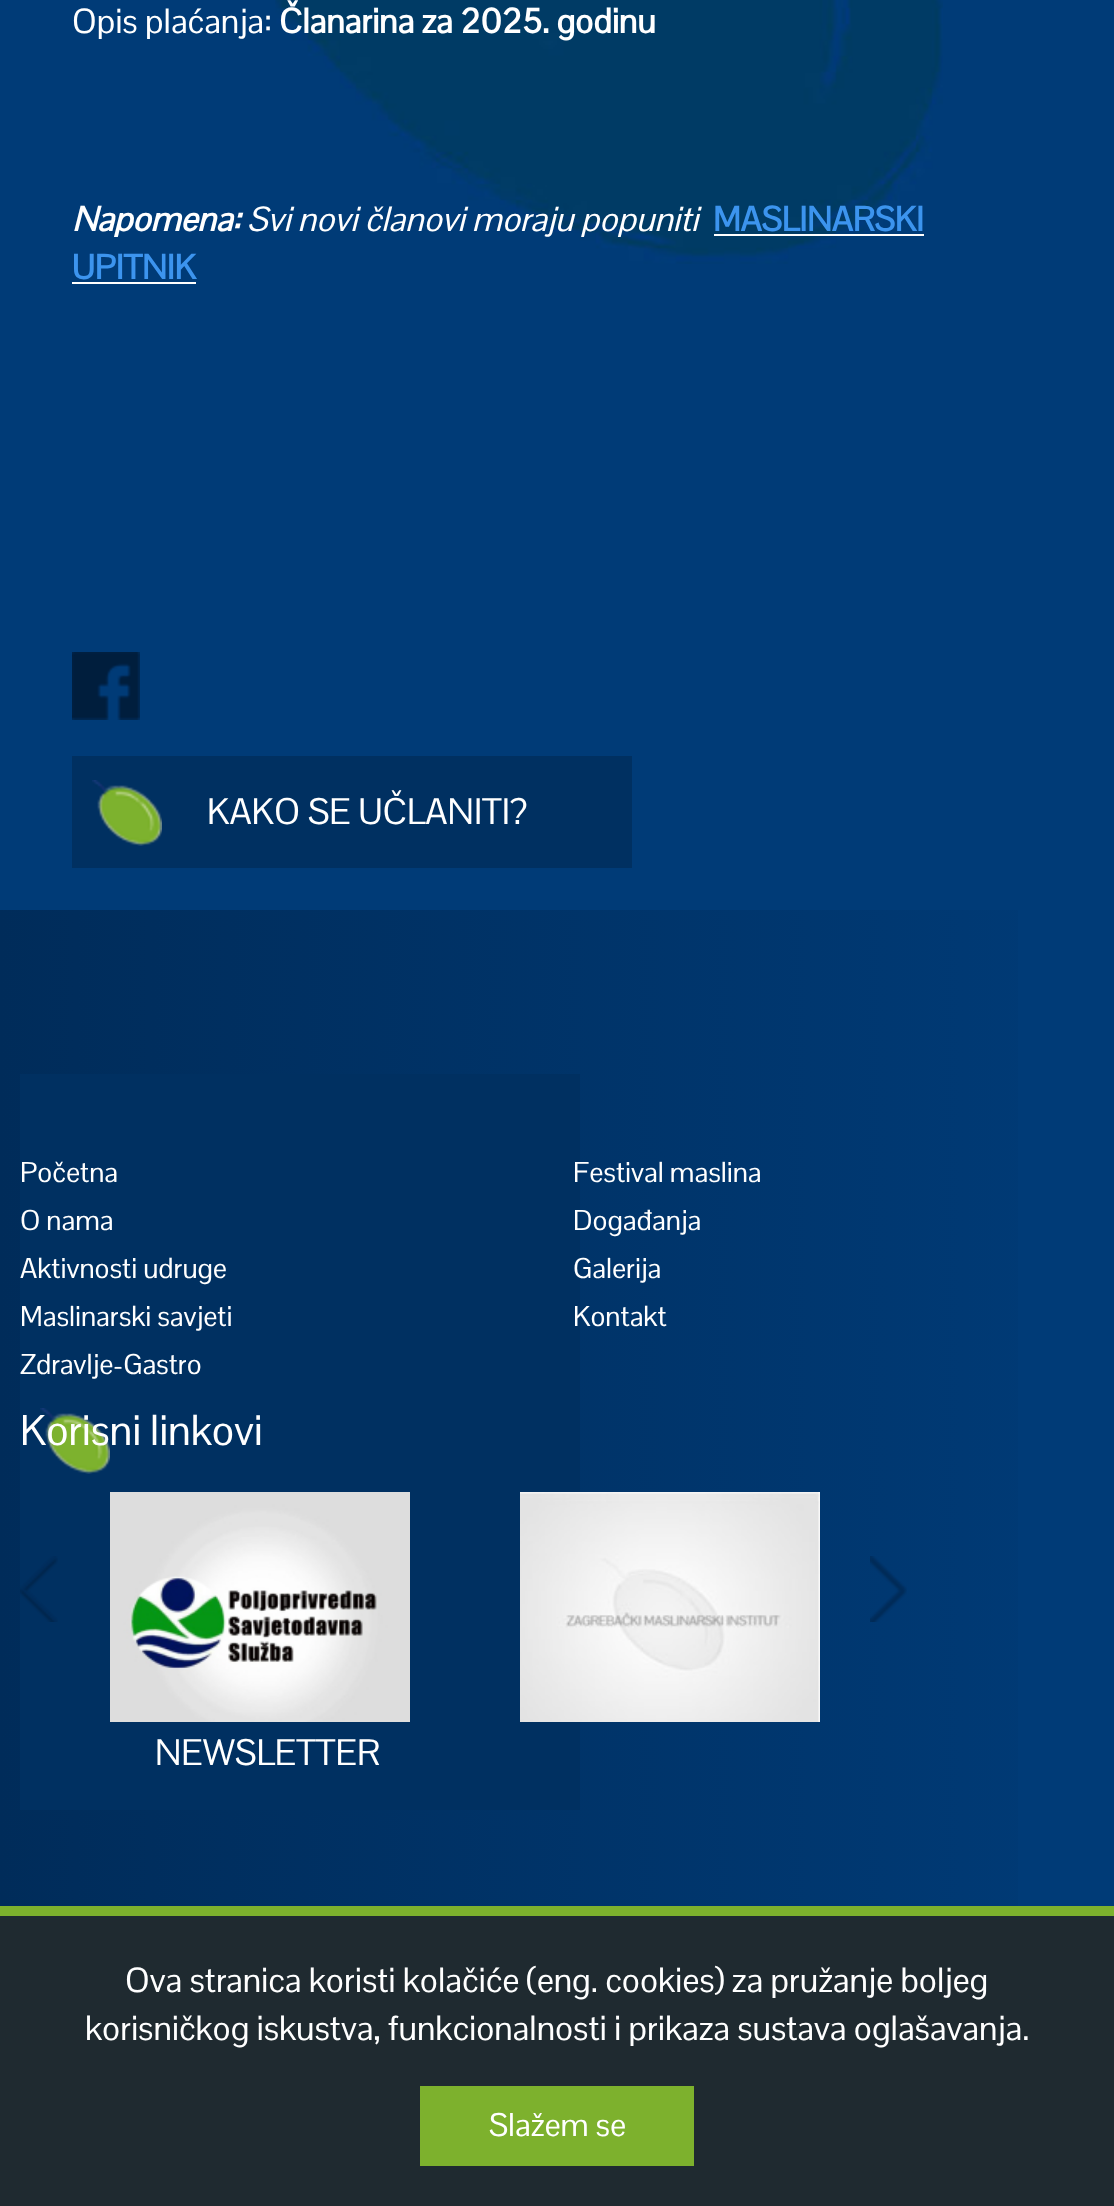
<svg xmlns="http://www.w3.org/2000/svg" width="1114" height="2206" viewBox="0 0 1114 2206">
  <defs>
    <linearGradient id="g1" gradientUnits="userSpaceOnUse" x1="0" y1="1424" x2="1114" y2="1424"><stop offset="0" stop-color="#002c5a"/><stop offset="1" stop-color="#003b77"/></linearGradient>
  </defs>
  <rect width="100%" height="100%" fill="#003b77"/>
  <image x="275" y="0" width="668" height="264" href="img/1.png"/>
  <path d="M714 234h210v2H714z" fill="#fff"/>
  <path d="M72 282h124v2H72z" fill="#fff"/>
  <image x="72" y="652" width="68" height="68" href="img/2.png"/>
  <path d="M72 756h560v112H72z" fill="#003061"/>
  <image x="92" y="780" width="70" height="66" href="img/3.png"/>
  <path d="M0 910h1018v996H0z" fill="url(#g1)"/>
  <path d="M20 1074h560v736H20z" fill="#003061"/>
  <image x="110" y="1492" width="300" height="230" href="img/4.png"/>
  <image x="520" y="1492" width="300" height="230" href="img/5.png"/>
  <image x="20" y="1556" width="38" height="66" href="img/6.png"/>
  <image x="870" y="1556" width="37" height="66" href="img/7.png"/>
  <image x="40" y="1408" width="70" height="66" href="img/3.png"/>
  <path d="M0 1916h1114v290H0z" fill="#1f2a30"/>
  <path d="M0 1906h1114v10H0z" fill="#7db12d"/>
  <path d="M420 2086h274v80H420z" fill="#7db12d"/>
  <text x="72" y="33" font-family="Pontano Sans" font-size="34" fill="#fff">Opis plaćanja:</text>
  <text x="279" y="33" font-family="Pontano Sans" font-size="34" font-weight="bold" fill="#fff">Članarina za 2025. godinu</text>
  <text x="72" y="231" font-family="Pontano Sans" font-size="34" font-weight="bold" font-style="italic" fill="#fff">Napomena:</text>
  <text x="247" y="231" font-family="Pontano Sans" font-size="34" font-style="italic" fill="#fff">Svi novi članovi moraju popuniti</text>
  <g font-family="Pontano Sans" font-size="34" font-weight="bold" fill="#3c94ee">
    <text x="713" y="231">MASLINARSKI</text>
    <text x="72" y="279">UPITNIK</text>
  </g>
  <text x="207" y="824" font-family="Pontano Sans" font-size="36" fill="#fff">KAKO SE UČLANITI?</text>
  <g font-family="Pontano Sans" font-size="28" fill="#fff">
    <text x="20" y="1182">Početna</text>
    <text x="573" y="1182">Festival maslina</text>
    <text x="20" y="1230">O nama</text>
    <text x="573" y="1230">Događanja</text>
    <text x="20" y="1278">Aktivnosti udruge</text>
    <text x="573" y="1278">Galerija</text>
    <text x="20" y="1326">Maslinarski savjeti</text>
    <text x="573" y="1326">Kontakt</text>
    <text x="20" y="1374">Zdravlje-Gastro</text>
  </g>
  <text x="20" y="1445" font-family="Pontano Sans" font-size="42" fill="#fff">Korisni linkovi</text>
  <text x="155" y="1765" font-family="Pontano Sans" font-size="36" fill="#fff">NEWSLETTER</text>
  <g font-family="Pontano Sans" font-size="34" fill="#fff">
    <text x="125" y="1992">Ova stranica koristi kolačiće (eng. cookies) za pružanje boljeg</text>
    <text x="85" y="2040">korisničkog iskustva, funkcionalnosti i prikaza sustava oglašavanja.</text>
  </g>
  <text x="489" y="2136" font-family="Pontano Sans" font-size="32" fill="#fff">Slažem se</text>
</svg>
